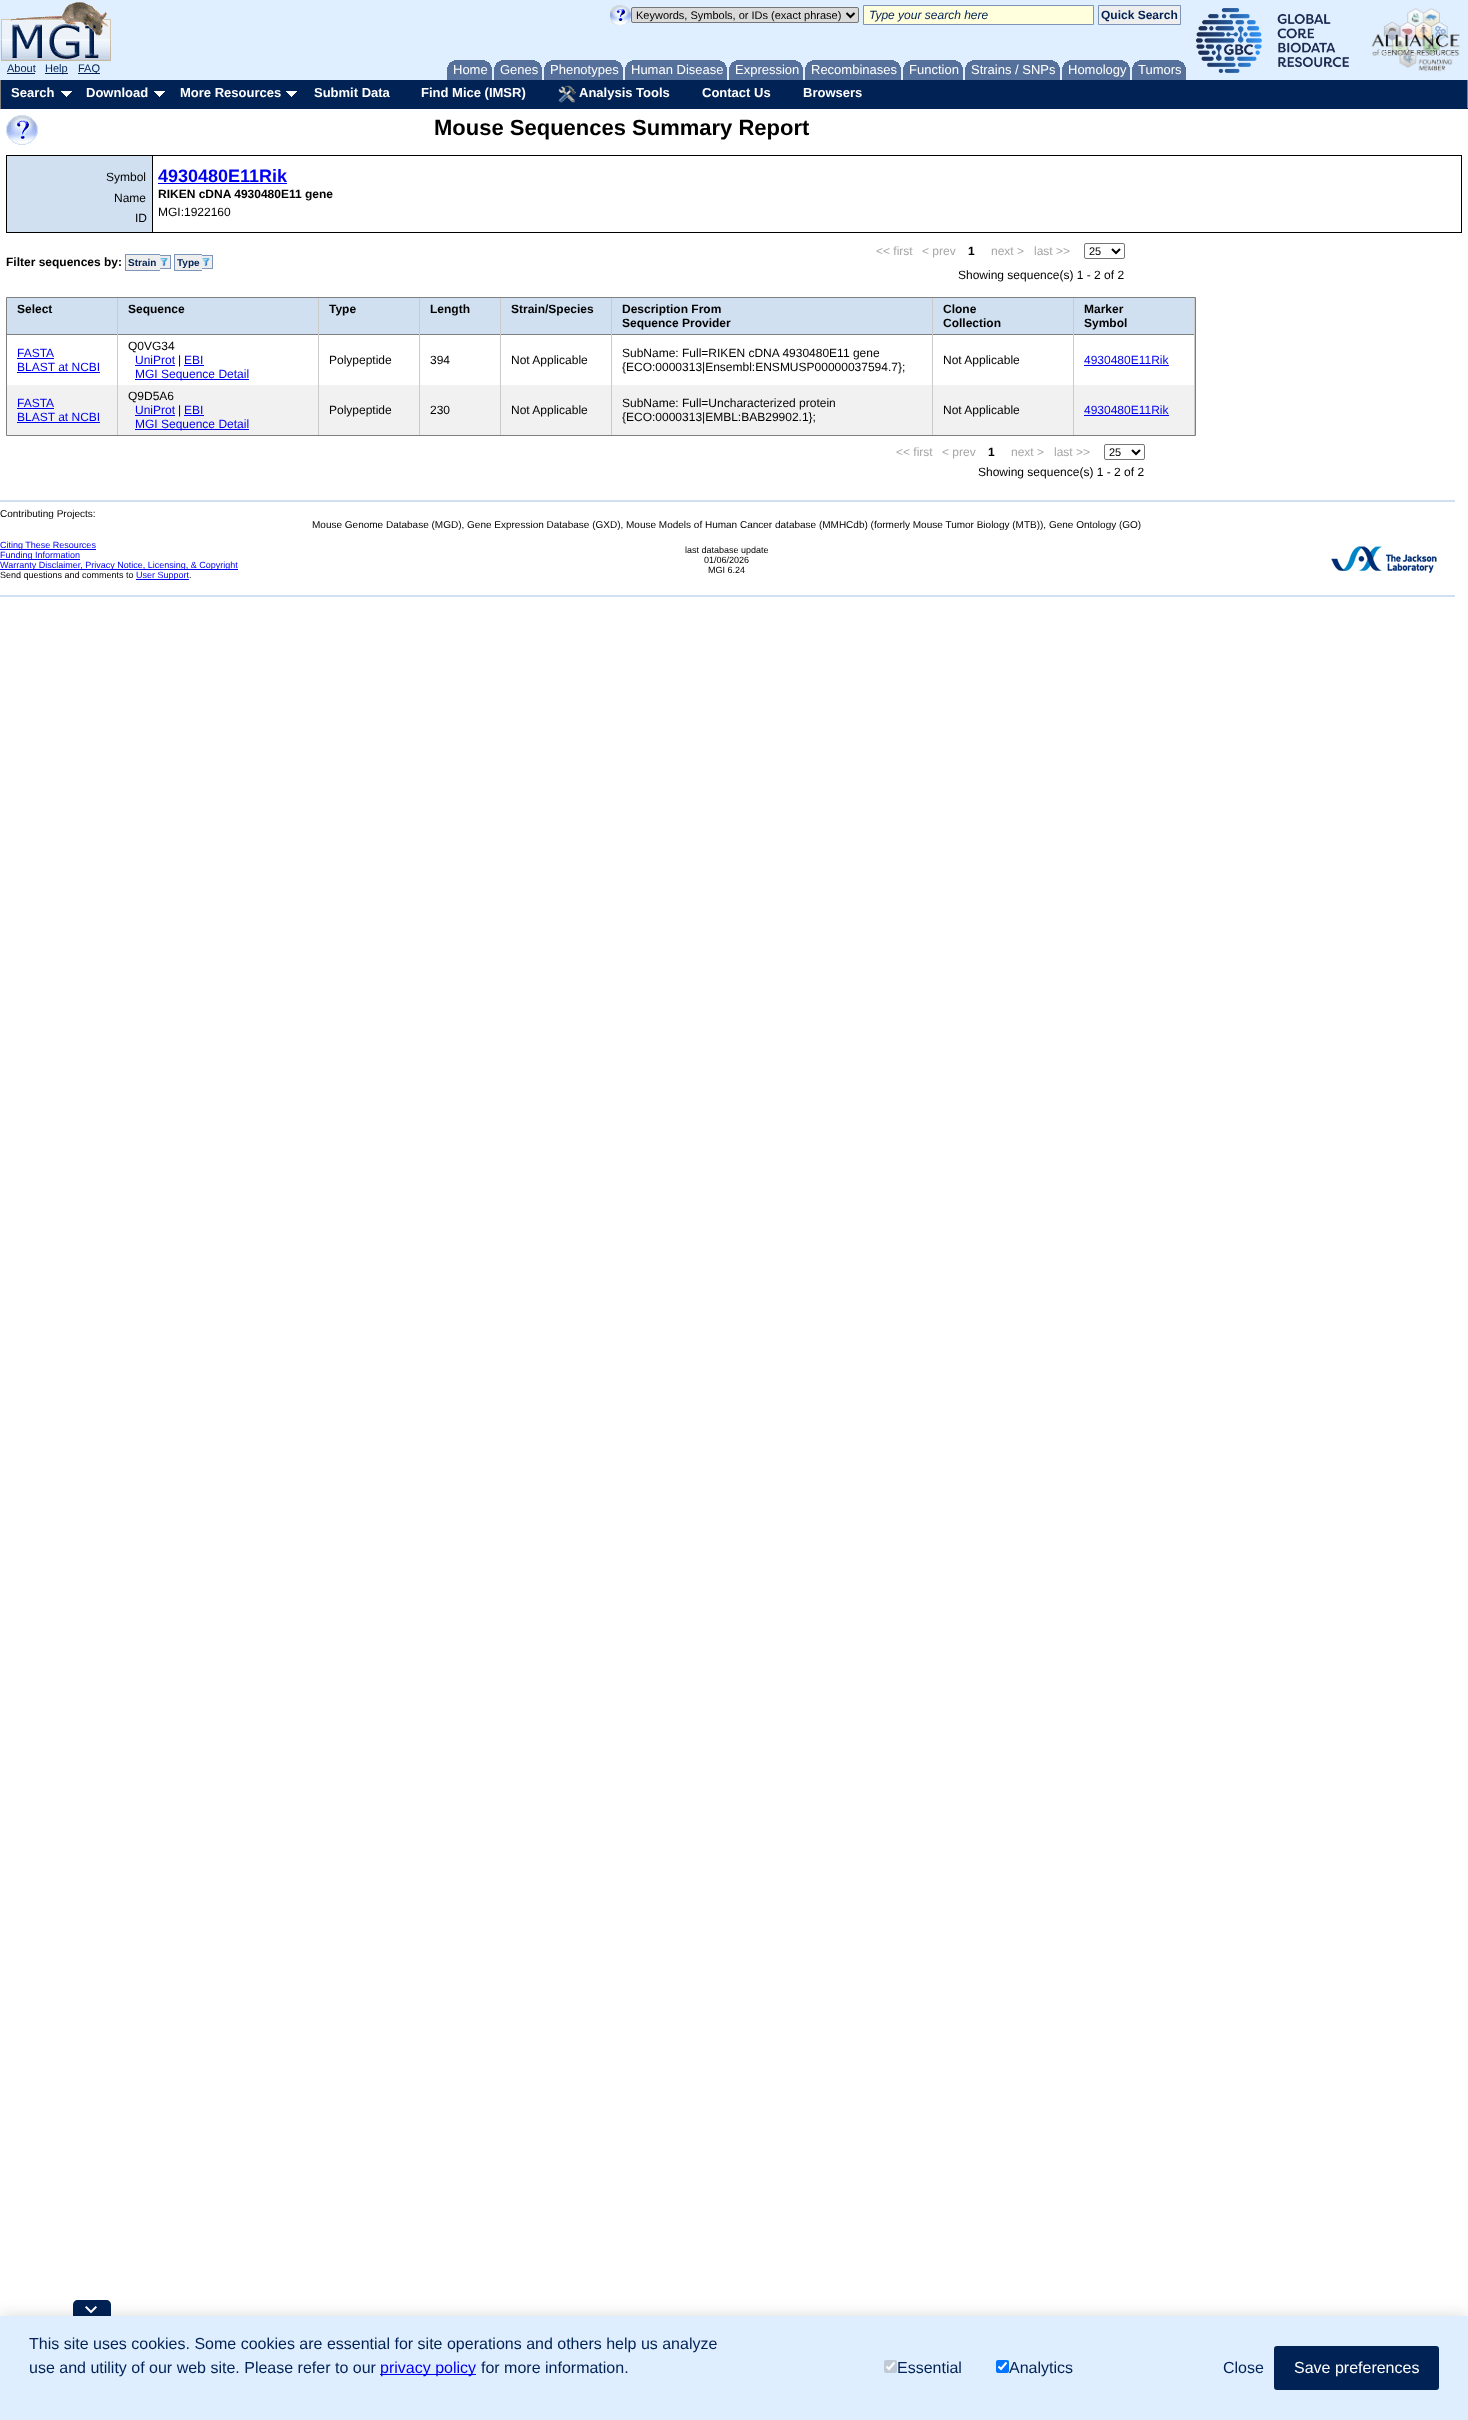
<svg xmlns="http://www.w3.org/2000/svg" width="1468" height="2420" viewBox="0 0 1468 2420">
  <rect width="100%" height="100%" fill="#fff"/>
  <path d="M0 0h1468v80H0z" fill="#dfefff"/>
  <image x="610" y="5" width="21" height="20" href="img/1.png"/>
  <rect x="631.5" y="7.5" width="227" height="15" rx="1.5" fill="#dadada" stroke="#767676"/>
  <path d="M846.5 13L850.5 17L854.5 13" fill="none" stroke="#000" stroke-width="2"/>
  <path d="M863.5 5.5h230v19H863.5z" fill="#ffd" stroke="#7d95b9"/>
  <path d="M1098.5 5.5h82v19H1098.5z" fill="#eee" stroke="#7d95b9"/>
  <image x="1196" y="8" width="153" height="65" href="img/2.png"/>
  <image x="1371" y="8" width="89" height="64" href="img/3.png"/>
  <image x="1" y="2" width="110" height="59" href="img/4.png"/>
  <path d="M7 73h28v1H7z" fill="#025"/>
  <path d="M45 73h23v1H45z" fill="#025"/>
  <path d="M78 73h22v1H78z" fill="#025"/>
  <path d="M447 60h45v20H447z" fill="#54709b"/>
  <image x="447" y="60" width="7" height="7" href="img/5.png"/>
  <image x="485" y="60" width="7" height="7" href="img/6.png"/>
  <path d="M494 60h48v20H494z" fill="#54709b"/>
  <image x="494" y="60" width="7" height="7" href="img/5.png"/>
  <image x="535" y="60" width="7" height="7" href="img/6.png"/>
  <path d="M544 60h79v20H544z" fill="#54709b"/>
  <image x="544" y="60" width="7" height="7" href="img/5.png"/>
  <image x="616" y="60" width="7" height="7" href="img/6.png"/>
  <path d="M625 60h102v20H625z" fill="#54709b"/>
  <image x="625" y="60" width="7" height="7" href="img/5.png"/>
  <image x="720" y="60" width="7" height="7" href="img/6.png"/>
  <path d="M729 60h74v20H729z" fill="#54709b"/>
  <image x="729" y="60" width="7" height="7" href="img/5.png"/>
  <image x="796" y="60" width="7" height="7" href="img/6.png"/>
  <path d="M805 60h96v20H805z" fill="#54709b"/>
  <image x="805" y="60" width="7" height="7" href="img/5.png"/>
  <image x="894" y="60" width="7" height="7" href="img/6.png"/>
  <path d="M903 60h60v20H903z" fill="#54709b"/>
  <image x="903" y="60" width="7" height="7" href="img/5.png"/>
  <image x="956" y="60" width="7" height="7" href="img/6.png"/>
  <path d="M965 60h95v20H965z" fill="#54709b"/>
  <image x="965" y="60" width="7" height="7" href="img/5.png"/>
  <image x="1053" y="60" width="7" height="7" href="img/6.png"/>
  <path d="M1062 60h68v20H1062z" fill="#54709b"/>
  <image x="1062" y="60" width="7" height="7" href="img/5.png"/>
  <image x="1123" y="60" width="7" height="7" href="img/6.png"/>
  <path d="M1132 60h54v20H1132z" fill="#54709b"/>
  <image x="1132" y="60" width="7" height="7" href="img/5.png"/>
  <image x="1179" y="60" width="7" height="7" href="img/6.png"/>
  <path d="M1 80h1466v28H1z" fill="#025"/>
  <path d="M1467 80h1v29H1467z" fill="#808080"/>
  <path d="M0 108h1468v1H0z" fill="#025"/>
  <path d="M0 80h1v29H0z" fill="#808080"/>
  <image x="61" y="91" width="11" height="6" href="img/7.png"/>
  <image x="154" y="91" width="11" height="6" href="img/7.png"/>
  <image x="286" y="91" width="11" height="6" href="img/7.png"/>
  <image x="558" y="85" width="18" height="18" href="img/8.png"/>
  <image x="6" y="115" width="32" height="30" href="img/9.png"/>
  <path d="M6 155h1456v1H6z" fill="#000"/>
  <path d="M1461 155h1v78H1461z" fill="#000"/>
  <path d="M6 232h1456v1H6z" fill="#000"/>
  <path d="M6 155h1v78H6z" fill="#000"/>
  <path d="M7 156h145v76H7z" fill="#d0e0f0"/>
  <path d="M152 155h1v78H152z" fill="#000"/>
  <path d="M158 183h129v1H158z" fill="#00e"/>
  <path d="M126 255h34v15H126z" fill="#eee"/>
  <path d="M125 254h35v1H125z" fill="#7d95b9"/>
  <path d="M125 270h35v1H125z" fill="#7d95b9"/>
  <path d="M125 254h1v17H125z" fill="#7d95b9"/>
  <path d="M160 256h10v12H160z" fill="#eee"/>
  <path d="M160 255h11v1H160z" fill="#7d95b9"/>
  <path d="M170 255h1v14H170z" fill="#7d95b9"/>
  <path d="M160 268h11v1H160z" fill="#7d95b9"/>
  <image x="160" y="258" width="8" height="8" href="img/10.png"/>
  <path d="M175 255h27v15H175z" fill="#eee"/>
  <path d="M174 254h28v1H174z" fill="#7d95b9"/>
  <path d="M174 270h28v1H174z" fill="#7d95b9"/>
  <path d="M174 254h1v17H174z" fill="#7d95b9"/>
  <path d="M202 256h10v12H202z" fill="#eee"/>
  <path d="M202 255h11v1H202z" fill="#7d95b9"/>
  <path d="M212 255h1v14H212z" fill="#7d95b9"/>
  <path d="M202 268h11v1H202z" fill="#7d95b9"/>
  <image x="202" y="258" width="8" height="8" href="img/10.png"/>
  <rect x="1084.5" y="243.5" width="40" height="15" rx="1.5" fill="none" stroke="#767676"/>
  <path d="M1112 249L1116 253L1120 249" fill="none" stroke="#000" stroke-width="2"/>
  <path d="M6.5 297.5h1189v138H6.5z" fill="none" stroke="#7f7f7f"/>
  <path d="M7 298h110v36H7z" fill="#d0e0f0"/>
  <path d="M117 298h1v36H117z" fill="#cbcbcb"/>
  <path d="M118 298h200v36H118z" fill="#d0e0f0"/>
  <path d="M318 298h1v36H318z" fill="#cbcbcb"/>
  <path d="M319 298h100v36H319z" fill="#d0e0f0"/>
  <path d="M419 298h1v36H419z" fill="#cbcbcb"/>
  <path d="M420 298h80v36H420z" fill="#d0e0f0"/>
  <path d="M500 298h1v36H500z" fill="#cbcbcb"/>
  <path d="M501 298h110v36H501z" fill="#d0e0f0"/>
  <path d="M611 298h1v36H611z" fill="#cbcbcb"/>
  <path d="M612 298h320v36H612z" fill="#d0e0f0"/>
  <path d="M932 298h1v36H932z" fill="#cbcbcb"/>
  <path d="M933 298h140v36H933z" fill="#d0e0f0"/>
  <path d="M1073 298h1v36H1073z" fill="#cbcbcb"/>
  <path d="M1074 298h120v36H1074z" fill="#d0e0f0"/>
  <path d="M1194 298h1v36H1194z" fill="#cbcbcb"/>
  <path d="M7 334h1188v1H7z" fill="#7f7f7f"/>
  <path d="M117 334h1v51H117z" fill="#cbcbcb"/>
  <path d="M17 358h37v1H17z" fill="#00e"/>
  <path d="M17 372h83v1H17z" fill="#00e"/>
  <path d="M318 334h1v51H318z" fill="#cbcbcb"/>
  <path d="M135 365h40v1H135z" fill="#00e"/>
  <path d="M184 365h20v1H184z" fill="#00e"/>
  <path d="M135 379h114v1H135z" fill="#00e"/>
  <path d="M419 334h1v51H419z" fill="#cbcbcb"/>
  <path d="M500 334h1v51H500z" fill="#cbcbcb"/>
  <path d="M611 334h1v51H611z" fill="#cbcbcb"/>
  <path d="M932 334h1v51H932z" fill="#cbcbcb"/>
  <path d="M1073 334h1v51H1073z" fill="#cbcbcb"/>
  <path d="M1194 334h1v101H1194z" fill="#cbcbcb"/>
  <path d="M1084 365h85v1H1084z" fill="#00e"/>
  <path d="M7 385h1187v50H7z" fill="#f1f1f1"/>
  <path d="M117 385h1v50H117z" fill="#cbcbcb"/>
  <path d="M17 408h37v1H17z" fill="#00e"/>
  <path d="M17 422h83v1H17z" fill="#00e"/>
  <path d="M318 385h1v50H318z" fill="#cbcbcb"/>
  <path d="M135 415h40v1H135z" fill="#00e"/>
  <path d="M184 415h20v1H184z" fill="#00e"/>
  <path d="M135 429h114v1H135z" fill="#00e"/>
  <path d="M419 385h1v50H419z" fill="#cbcbcb"/>
  <path d="M500 385h1v50H500z" fill="#cbcbcb"/>
  <path d="M611 385h1v50H611z" fill="#cbcbcb"/>
  <path d="M932 385h1v50H932z" fill="#cbcbcb"/>
  <path d="M1073 385h1v50H1073z" fill="#cbcbcb"/>
  <path d="M1084 415h85v1H1084z" fill="#00e"/>
  <rect x="1104.5" y="444.5" width="40" height="15" rx="1.5" fill="none" stroke="#767676"/>
  <path d="M1132 450L1136 454L1140 450" fill="none" stroke="#000" stroke-width="2"/>
  <path d="M0 500h1455v2H0z" fill="#d0e0f0"/>
  <path d="M0 549h96v1H0z" fill="#00e"/>
  <path d="M0 559h80v1H0z" fill="#00e"/>
  <path d="M0 569h238v1H0z" fill="#00e"/>
  <path d="M136 579h53v1H136z" fill="#00e"/>
  <image x="1331" y="546" width="106" height="27" href="img/11.png"/>
  <path d="M0 595h1455v2H0z" fill="#d0e0f0"/>
  <path d="M78 2300H106C109 2300 111 2302 111 2305V2316H73V2305C73 2302 75 2300 78 2300Z" fill="#025"/>
  <path d="M0 2316h1468v104H0z" fill="#00000026" filter="blur(8px)"/>
  <image x="85" y="2306" width="12" height="8" href="img/12.png"/>
  <path d="M0 2316h1468v104H0z" fill="#deeeff"/>
  <path d="M380 2374h96v1H380z" fill="#00e"/>
  <rect x="884" y="2360" width="13" height="13" rx="2" fill="#bfcad6"/>
  <path d="M886.5 2366.5L889 2369L894.5 2362.5" fill="none" stroke="#fff" stroke-width="2.1"/>
  <rect x="996" y="2360" width="13" height="13" rx="2" fill="#0075ff"/>
  <path d="M998.5 2366.5L1001 2369L1006.5 2362.5" fill="none" stroke="#fff" stroke-width="2.1"/>
  <rect x="1274" y="2346" width="165" height="44" rx="3" fill="#025"/>
  <text x="636" y="19" font-family="Liberation Sans" font-size="11" fill="#000001">Keywords, Symbols, or IDs (exact phrase)</text>
  <text x="869" y="19" font-family="Liberation Sans" font-size="12" font-style="italic" fill="#025">Type your search here</text>
  <text x="1101" y="19" font-family="Liberation Sans" font-size="12" font-weight="bold" fill="#025">Quick Search</text>
  <g font-family="Liberation Sans" font-size="11" fill="#025">
    <text x="7" y="72">About</text>
    <text x="45" y="72">Help</text>
    <text x="78" y="72">FAQ</text>
  </g>
  <g font-family="Liberation Sans" font-size="13" fill="#fff">
    <text x="453" y="74">Home</text>
    <text x="500" y="74">Genes</text>
    <text x="550" y="74">Phenotypes</text>
    <text x="631" y="74">Human Disease</text>
    <text x="735" y="74">Expression</text>
    <text x="811" y="74">Recombinases</text>
    <text x="909" y="74">Function</text>
    <text x="971" y="74">Strains / SNPs</text>
    <text x="1068" y="74">Homology</text>
    <text x="1138" y="74">Tumors</text>
  </g>
  <g font-family="Liberation Sans" font-size="13" font-weight="bold" fill="#fff">
    <text x="11" y="97">Search</text>
    <text x="86" y="97">Download</text>
    <text x="180" y="97">More Resources</text>
    <text x="314" y="97">Submit Data</text>
    <text x="421" y="97">Find Mice (IMSR)</text>
    <text x="579" y="97">Analysis Tools</text>
    <text x="702" y="97">Contact Us</text>
    <text x="803" y="97">Browsers</text>
  </g>
  <text x="434" y="135" font-family="Liberation Sans" font-size="22" font-weight="bold" fill="#000001">Mouse Sequences Summary Report</text>
  <g font-family="Liberation Sans" font-size="12" fill="#000001">
    <text x="106" y="181">Symbol</text>
    <text x="114" y="202">Name</text>
    <text x="135" y="222">ID</text>
  </g>
  <text x="158" y="182" font-family="Liberation Sans" font-size="18" font-weight="bold" fill="#00e">4930480E11Rik</text>
  <text x="158" y="198" font-family="Liberation Sans" font-size="12" font-weight="bold" fill="#000001">RIKEN cDNA 4930480E11 gene</text>
  <text x="158" y="216" font-family="Liberation Sans" font-size="12" fill="#000001">MGI:1922160</text>
  <text x="6" y="266" font-family="Liberation Sans" font-size="12" font-weight="bold" fill="#000001">Filter sequences by:</text>
  <g font-family="Liberation Sans" font-size="10" font-weight="bold" fill="#025">
    <text x="128" y="266">Strain</text>
    <text x="177" y="266">Type</text>
  </g>
  <g font-family="Liberation Sans" font-size="12" fill="#a6a6a6">
    <text x="876" y="255">&lt;&lt; first</text>
    <text x="922" y="255">&lt; prev</text>
  </g>
  <text x="968" y="255" font-family="Liberation Sans" font-size="12" font-weight="bold" fill="#000001">1</text>
  <g font-family="Liberation Sans" font-size="12" fill="#a6a6a6">
    <text x="991" y="255">next &gt;</text>
    <text x="1034" y="255">last &gt;&gt;</text>
  </g>
  <text x="1089" y="255" font-family="Liberation Sans" font-size="11" fill="#000001">25</text>
  <text x="958" y="279" font-family="Liberation Sans" font-size="12" fill="#000001">Showing sequence(s) 1 - 2 of 2</text>
  <g font-family="Liberation Sans" font-size="12" font-weight="bold" fill="#000001">
    <text x="17" y="313">Select</text>
    <text x="128" y="313">Sequence</text>
    <text x="329" y="313">Type</text>
    <text x="430" y="313">Length</text>
    <text x="511" y="313">Strain/Species</text>
    <text x="622" y="313">Description From</text>
    <text x="622" y="327">Sequence Provider</text>
    <text x="943" y="313">Clone</text>
    <text x="943" y="327">Collection</text>
    <text x="1084" y="313">Marker</text>
    <text x="1084" y="327">Symbol</text>
  </g>
  <g font-family="Liberation Sans" font-size="12" fill="#00e">
    <text x="17" y="357">FASTA</text>
    <text x="17" y="371">BLAST at NCBI</text>
  </g>
  <text x="128" y="350" font-family="Liberation Sans" font-size="12" fill="#000001">Q0VG34</text>
  <text x="135" y="364" font-family="Liberation Sans" font-size="12" fill="#00e">UniProt</text>
  <text x="178" y="364" font-family="Liberation Sans" font-size="12" fill="#000001">|</text>
  <g font-family="Liberation Sans" font-size="12" fill="#00e">
    <text x="184" y="364">EBI</text>
    <text x="135" y="378">MGI Sequence Detail</text>
  </g>
  <g font-family="Liberation Sans" font-size="12" fill="#000001">
    <text x="329" y="364">Polypeptide</text>
    <text x="430" y="364">394</text>
    <text x="511" y="364">Not Applicable</text>
    <text x="622" y="357">SubName: Full=RIKEN cDNA 4930480E11 gene</text>
    <text x="622" y="371">{ECO:0000313|Ensembl:ENSMUSP00000037594.7};</text>
    <text x="943" y="364">Not Applicable</text>
  </g>
  <g font-family="Liberation Sans" font-size="12" fill="#00e">
    <text x="1084" y="364">4930480E11Rik</text>
    <text x="17" y="407">FASTA</text>
    <text x="17" y="421">BLAST at NCBI</text>
  </g>
  <text x="128" y="400" font-family="Liberation Sans" font-size="12" fill="#000001">Q9D5A6</text>
  <text x="135" y="414" font-family="Liberation Sans" font-size="12" fill="#00e">UniProt</text>
  <text x="178" y="414" font-family="Liberation Sans" font-size="12" fill="#000001">|</text>
  <g font-family="Liberation Sans" font-size="12" fill="#00e">
    <text x="184" y="414">EBI</text>
    <text x="135" y="428">MGI Sequence Detail</text>
  </g>
  <g font-family="Liberation Sans" font-size="12" fill="#000001">
    <text x="329" y="414">Polypeptide</text>
    <text x="430" y="414">230</text>
    <text x="511" y="414">Not Applicable</text>
    <text x="622" y="407">SubName: Full=Uncharacterized protein</text>
    <text x="622" y="421">{ECO:0000313|EMBL:BAB29902.1};</text>
    <text x="943" y="414">Not Applicable</text>
  </g>
  <text x="1084" y="414" font-family="Liberation Sans" font-size="12" fill="#00e">4930480E11Rik</text>
  <g font-family="Liberation Sans" font-size="12" fill="#a6a6a6">
    <text x="896" y="456">&lt;&lt; first</text>
    <text x="942" y="456">&lt; prev</text>
  </g>
  <text x="988" y="456" font-family="Liberation Sans" font-size="12" font-weight="bold" fill="#000001">1</text>
  <g font-family="Liberation Sans" font-size="12" fill="#a6a6a6">
    <text x="1011" y="456">next &gt;</text>
    <text x="1054" y="456">last &gt;&gt;</text>
  </g>
  <text x="1109" y="456" font-family="Liberation Sans" font-size="11" fill="#000001">25</text>
  <text x="978" y="476" font-family="Liberation Sans" font-size="12" fill="#000001">Showing sequence(s) 1 - 2 of 2</text>
  <g font-family="Liberation Sans" font-size="10" fill="#000001">
    <text x="0" y="517">Contributing Projects:</text>
    <text x="312" y="528">Mouse Genome Database (MGD), Gene Expression Database (GXD), Mouse Models of Human Cancer database (MMHCdb) (formerly Mouse Tumor Biology (MTB)), Gene Ontology (GO)</text>
  </g>
  <g font-family="Liberation Sans" font-size="9" fill="#00e">
    <text x="0" y="548">Citing These Resources</text>
    <text x="0" y="558">Funding Information</text>
    <text x="0" y="568">Warranty Disclaimer, Privacy Notice, Licensing, &amp; Copyright</text>
  </g>
  <text x="0" y="578" font-family="Liberation Sans" font-size="9" fill="#000001">Send questions and comments to</text>
  <text x="136" y="578" font-family="Liberation Sans" font-size="9" fill="#00e">User Support</text>
  <g font-family="Liberation Sans" font-size="9" fill="#000001">
    <text x="189" y="578">.</text>
    <text x="685" y="553">last database update</text>
    <text x="704" y="563">01/06/2026</text>
    <text x="708" y="573">MGI 6.24</text>
  </g>
  <g font-family="Liberation Sans" font-size="16" fill="#025">
    <text x="29" y="2349">This site uses cookies. Some cookies are essential for site operations and others help us analyze</text>
    <text x="29" y="2373">use and utility of our web site. Please refer to our</text>
  </g>
  <text x="380" y="2373" font-family="Liberation Sans" font-size="16" fill="#00e">privacy policy</text>
  <g font-family="Liberation Sans" font-size="16" fill="#025">
    <text x="481" y="2373">for more information.</text>
    <text x="897" y="2373">Essential</text>
    <text x="1009" y="2373">Analytics</text>
    <text x="1223" y="2373">Close</text>
  </g>
  <text x="1294" y="2373" font-family="Liberation Sans" font-size="16" fill="#fff">Save preferences</text>
</svg>
